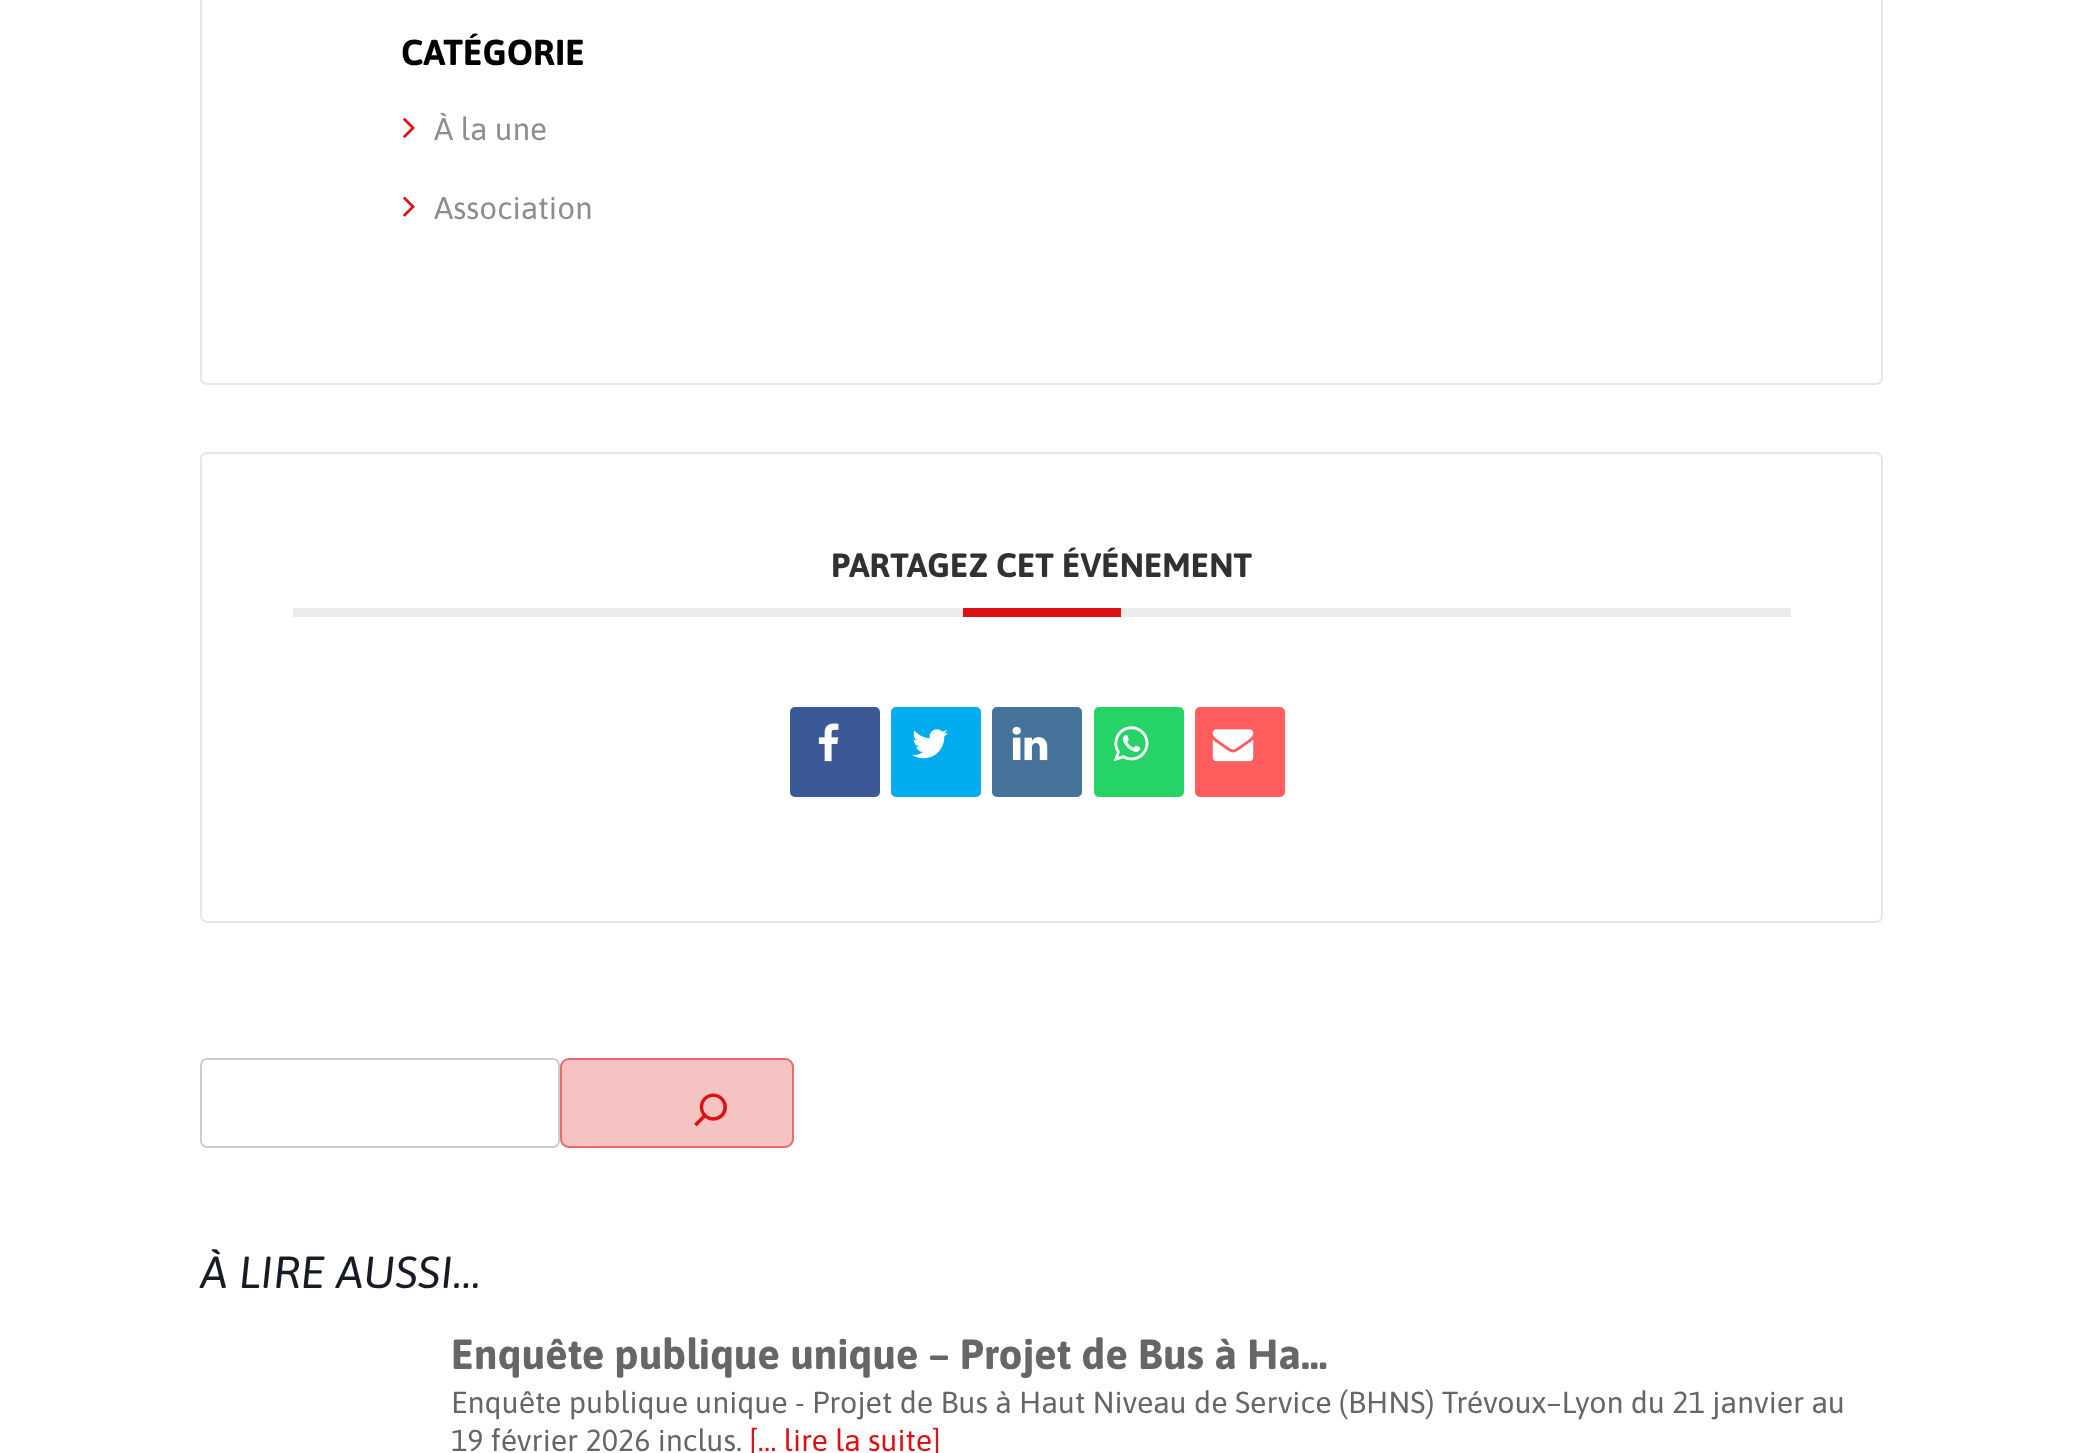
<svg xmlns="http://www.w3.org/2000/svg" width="2082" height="1453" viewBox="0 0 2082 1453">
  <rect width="100%" height="100%" fill="#fff"/>
  <rect x="201" y="-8" width="1681" height="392" rx="6" fill="none" stroke="#e6e7e8" stroke-width="2"/>
  <image x="403" y="118" width="12" height="20" href="img/1.png"/>
  <image x="403" y="196" width="12" height="21" href="img/2.png"/>
  <rect x="201" y="453" width="1681" height="469" rx="6" fill="none" stroke="#e6e7e8" stroke-width="2"/>
  <path d="M293 608h1498v9H293z" fill="#ebebeb"/>
  <path d="M963 608h158v9H963z" fill="#d11"/>
  <rect x="790" y="707" width="90" height="90" rx="5" fill="#3b5996"/>
  <image x="818" y="723" width="21" height="39" href="img/3.png"/>
  <rect x="891" y="707" width="90" height="90" rx="5" fill="#00acee"/>
  <image x="912" y="729" width="36" height="30" href="img/4.png"/>
  <rect x="992" y="707" width="90" height="90" rx="5" fill="#457399"/>
  <image x="1012" y="726" width="36" height="35" href="img/5.png"/>
  <rect x="1094" y="707" width="90" height="90" rx="5" fill="#25d366"/>
  <image x="1113" y="726" width="36" height="36" href="img/6.png"/>
  <rect x="1195" y="707" width="90" height="90" rx="5" fill="#ff5d5e"/>
  <image x="1212" y="729" width="42" height="33" href="img/7.png"/>
  <rect x="201" y="1059" width="358" height="88" rx="6" fill="none" stroke="#ccc" stroke-width="2"/>
  <path d="M560 1067V1143C563 1156 592 1150 605 1150H749C766 1150 794 1156 794 1141C793 1145 789 1148 785 1148H569C564 1148 560 1143 560 1138Z" fill="#fcfcfc"/>
  <rect x="560" y="1058" width="234" height="90" rx="9" fill="#f6c3c3"/>
  <rect x="561" y="1059" width="232" height="88" rx="8" fill="none" stroke="#dd111180" stroke-width="2"/>
  <image x="694" y="1093" width="33" height="34" href="img/8.png"/>
  <text x="401" y="65" font-family="Asap" font-size="36" font-weight="bold" fill="#000">CATÉGORIE</text>
  <g font-family="Asap" font-size="31.5" fill="#8d8d8d">
    <text x="434" y="140">À la une</text>
    <text x="434" y="219">Association</text>
  </g>
  <text x="831" y="577" font-family="Asap" font-size="33.75" font-weight="bold" fill="#313131">PARTAGEZ CET ÉVÉNEMENT</text>
  <text x="200" y="1288" font-family="Asap" font-size="45" font-style="italic" fill="#171c24">À LIRE AUSSI…</text>
  <text x="451" y="1369" font-family="Asap" font-size="42.2" font-weight="bold" fill="#666">Enquête publique unique – Projet de Bus à Ha…</text>
  <g font-family="Asap" font-size="30.4" fill="#666">
    <text x="451" y="1413">Enquête publique unique - Projet de Bus à Haut Niveau de Service (BHNS) Trévoux–Lyon du 21 janvier au</text>
    <text x="451" y="1451">19 février 2026 inclus.</text>
  </g>
  <text x="749" y="1451" font-family="Asap" font-size="30.4" fill="#d11">[… lire la suite]</text>
</svg>
